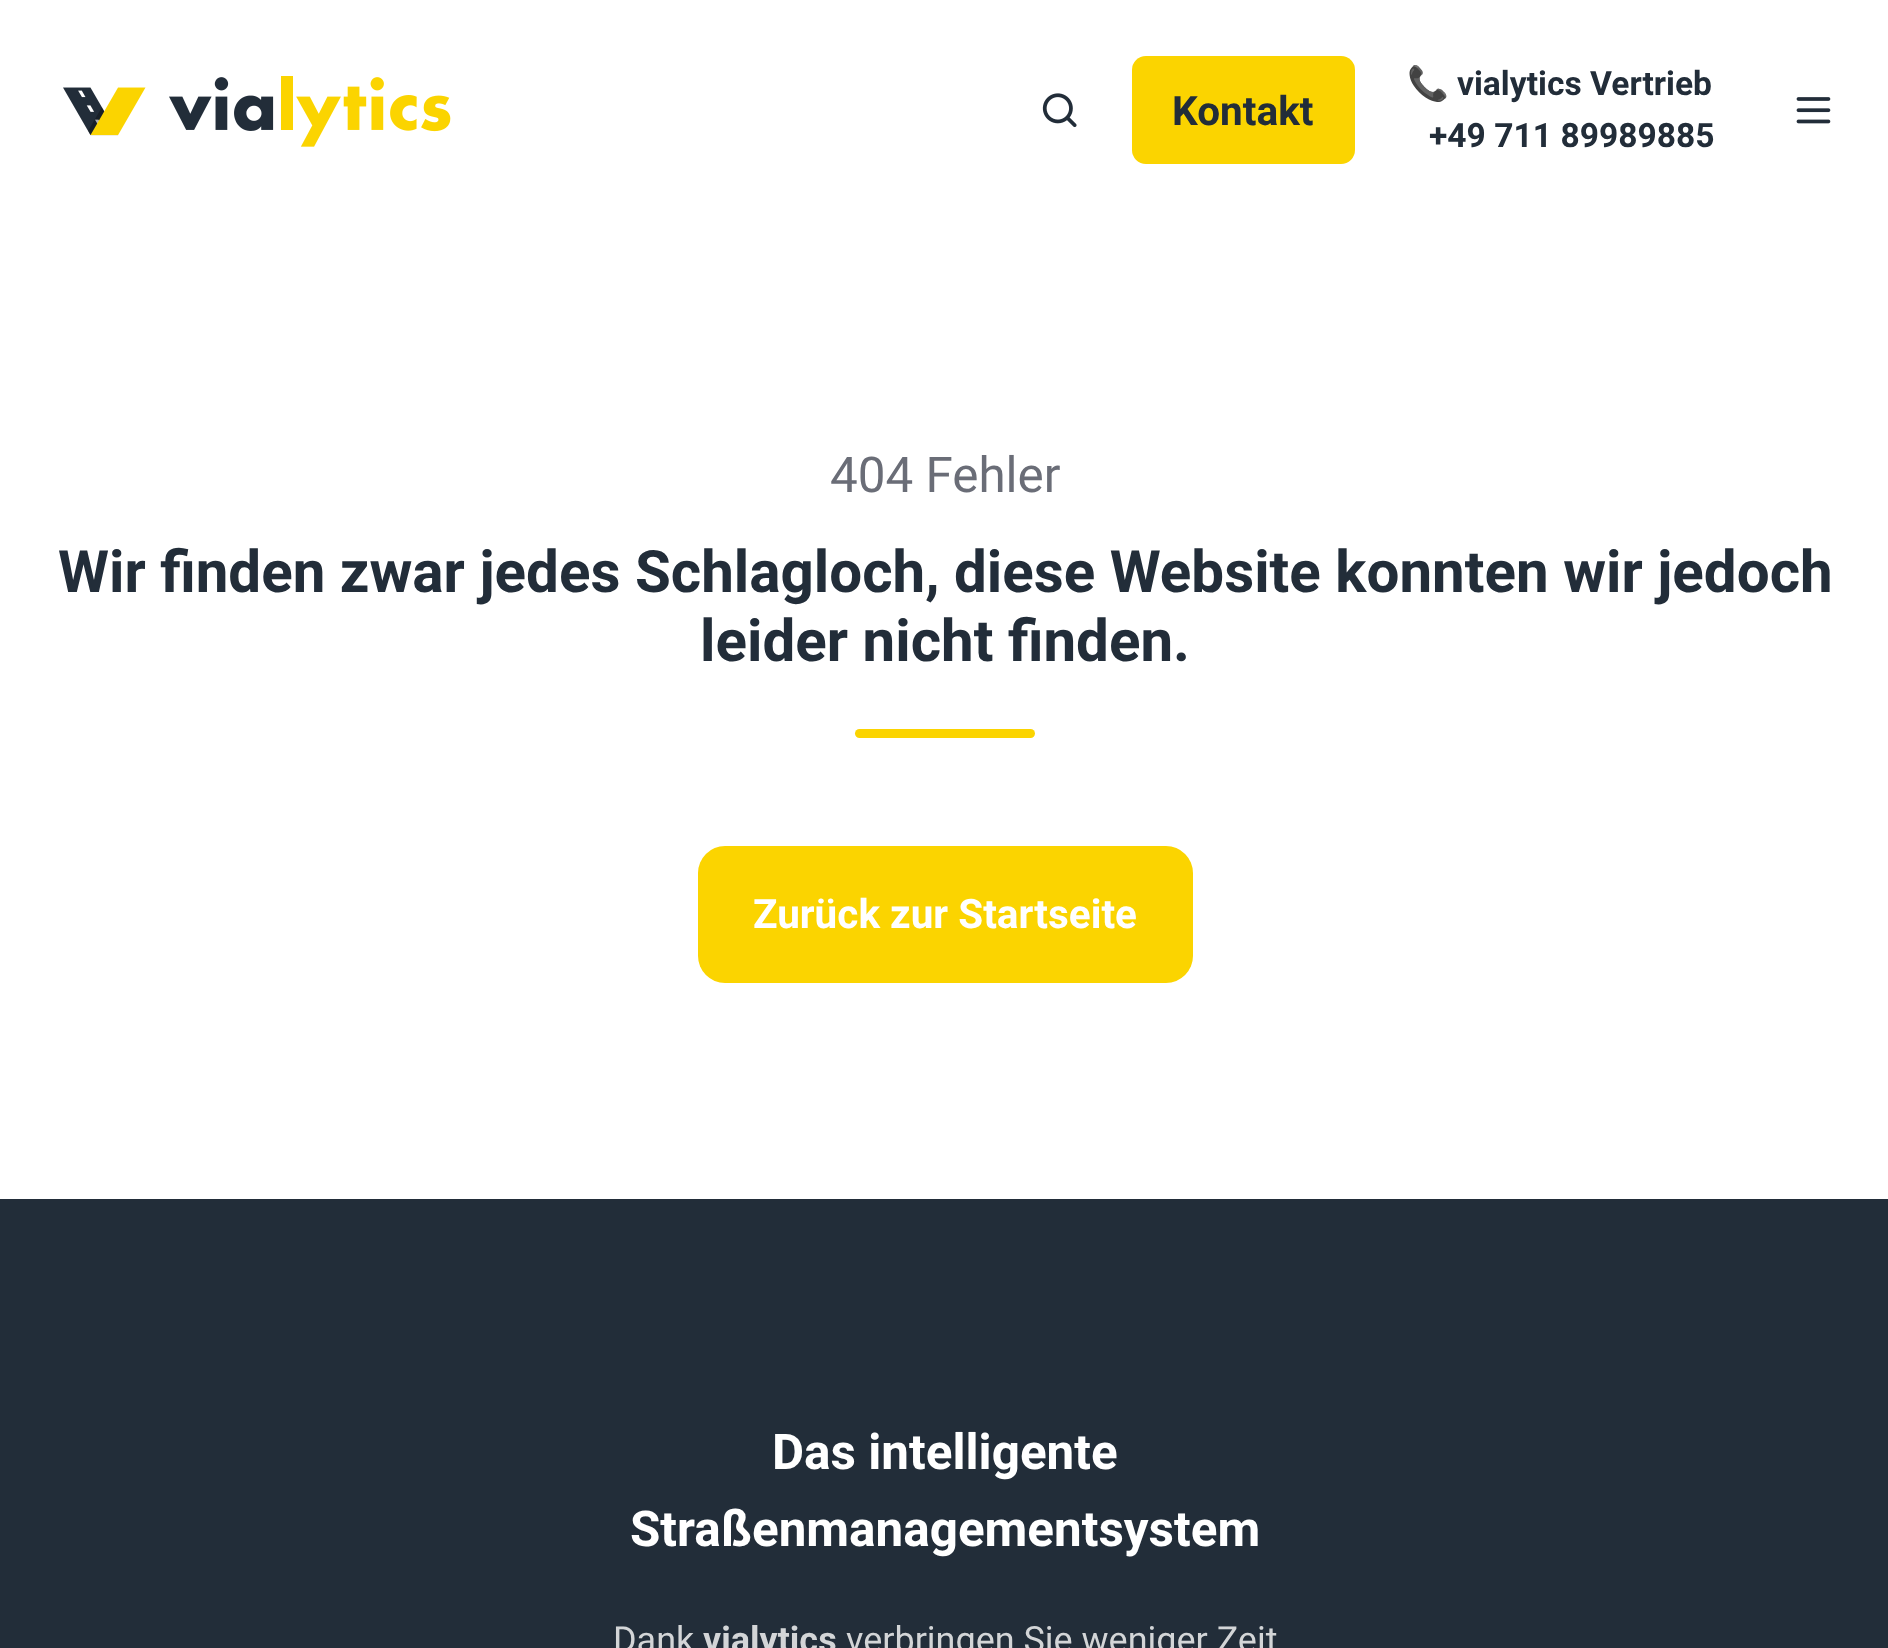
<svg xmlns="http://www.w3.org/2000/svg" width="1888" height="1648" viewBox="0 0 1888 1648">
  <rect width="100%" height="100%" fill="#fff"/>
  <image x="63" y="76" width="388" height="71" href="img/1.png"/>
  <image x="1042" y="93" width="35" height="35" href="img/2.png"/>
  <rect x="1132" y="56" width="223" height="108" rx="14" fill="#fbd400"/>
  <image x="1796" y="97" width="35" height="27" href="img/3.png"/>
  <rect x="855" y="729" width="180" height="9" rx="4.5" fill="#fbd400"/>
  <rect x="698" y="846" width="495" height="137" rx="27" fill="#fbd400"/>
  <path d="M0 1199h1888v449H0z" fill="#222d39"/>
  <text x="1172" y="125" font-family="Roboto" font-size="40.5" font-weight="bold" fill="#222d39">Kontakt</text>
  <text x="1407" y="95" font-family="Noto Color Emoji" font-size="33.6" font-weight="bold" fill="#222d39">📞</text>
  <g font-family="Roboto" font-size="33.6" font-weight="bold" fill="#222d39">
    <text x="1457" y="95">vialytics Vertrieb</text>
    <text x="1429" y="147">+49 711 89989885</text>
  </g>
  <text x="830" y="492" font-family="Roboto" font-size="49.4" fill="#6a6d77">404 Fehler</text>
  <g font-family="Roboto" font-size="58.3" font-weight="bold" fill="#222d39">
    <text x="58" y="592">Wir finden zwar jedes Schlagloch, diese Website konnten wir jedoch</text>
    <text x="700" y="661">leider nicht finden.</text>
  </g>
  <text x="753" y="928" font-family="Roboto" font-size="40.5" font-weight="bold" fill="#fff">Zurück zur Startseite</text>
  <g font-family="Roboto" font-size="49.4" font-weight="bold" fill="#fff">
    <text x="772" y="1469">Das intelligente</text>
    <text x="630" y="1546">Straßenmanagementsystem</text>
  </g>
  <text x="613" y="1652" font-family="Roboto" font-size="36" fill="#d3d5d7">Dank</text>
  <text x="703" y="1652" font-family="Roboto" font-size="36" font-weight="bold" fill="#d3d5d7">vialytics</text>
  <text x="846" y="1652" font-family="Roboto" font-size="36" fill="#d3d5d7">verbringen Sie weniger Zeit</text>
</svg>
